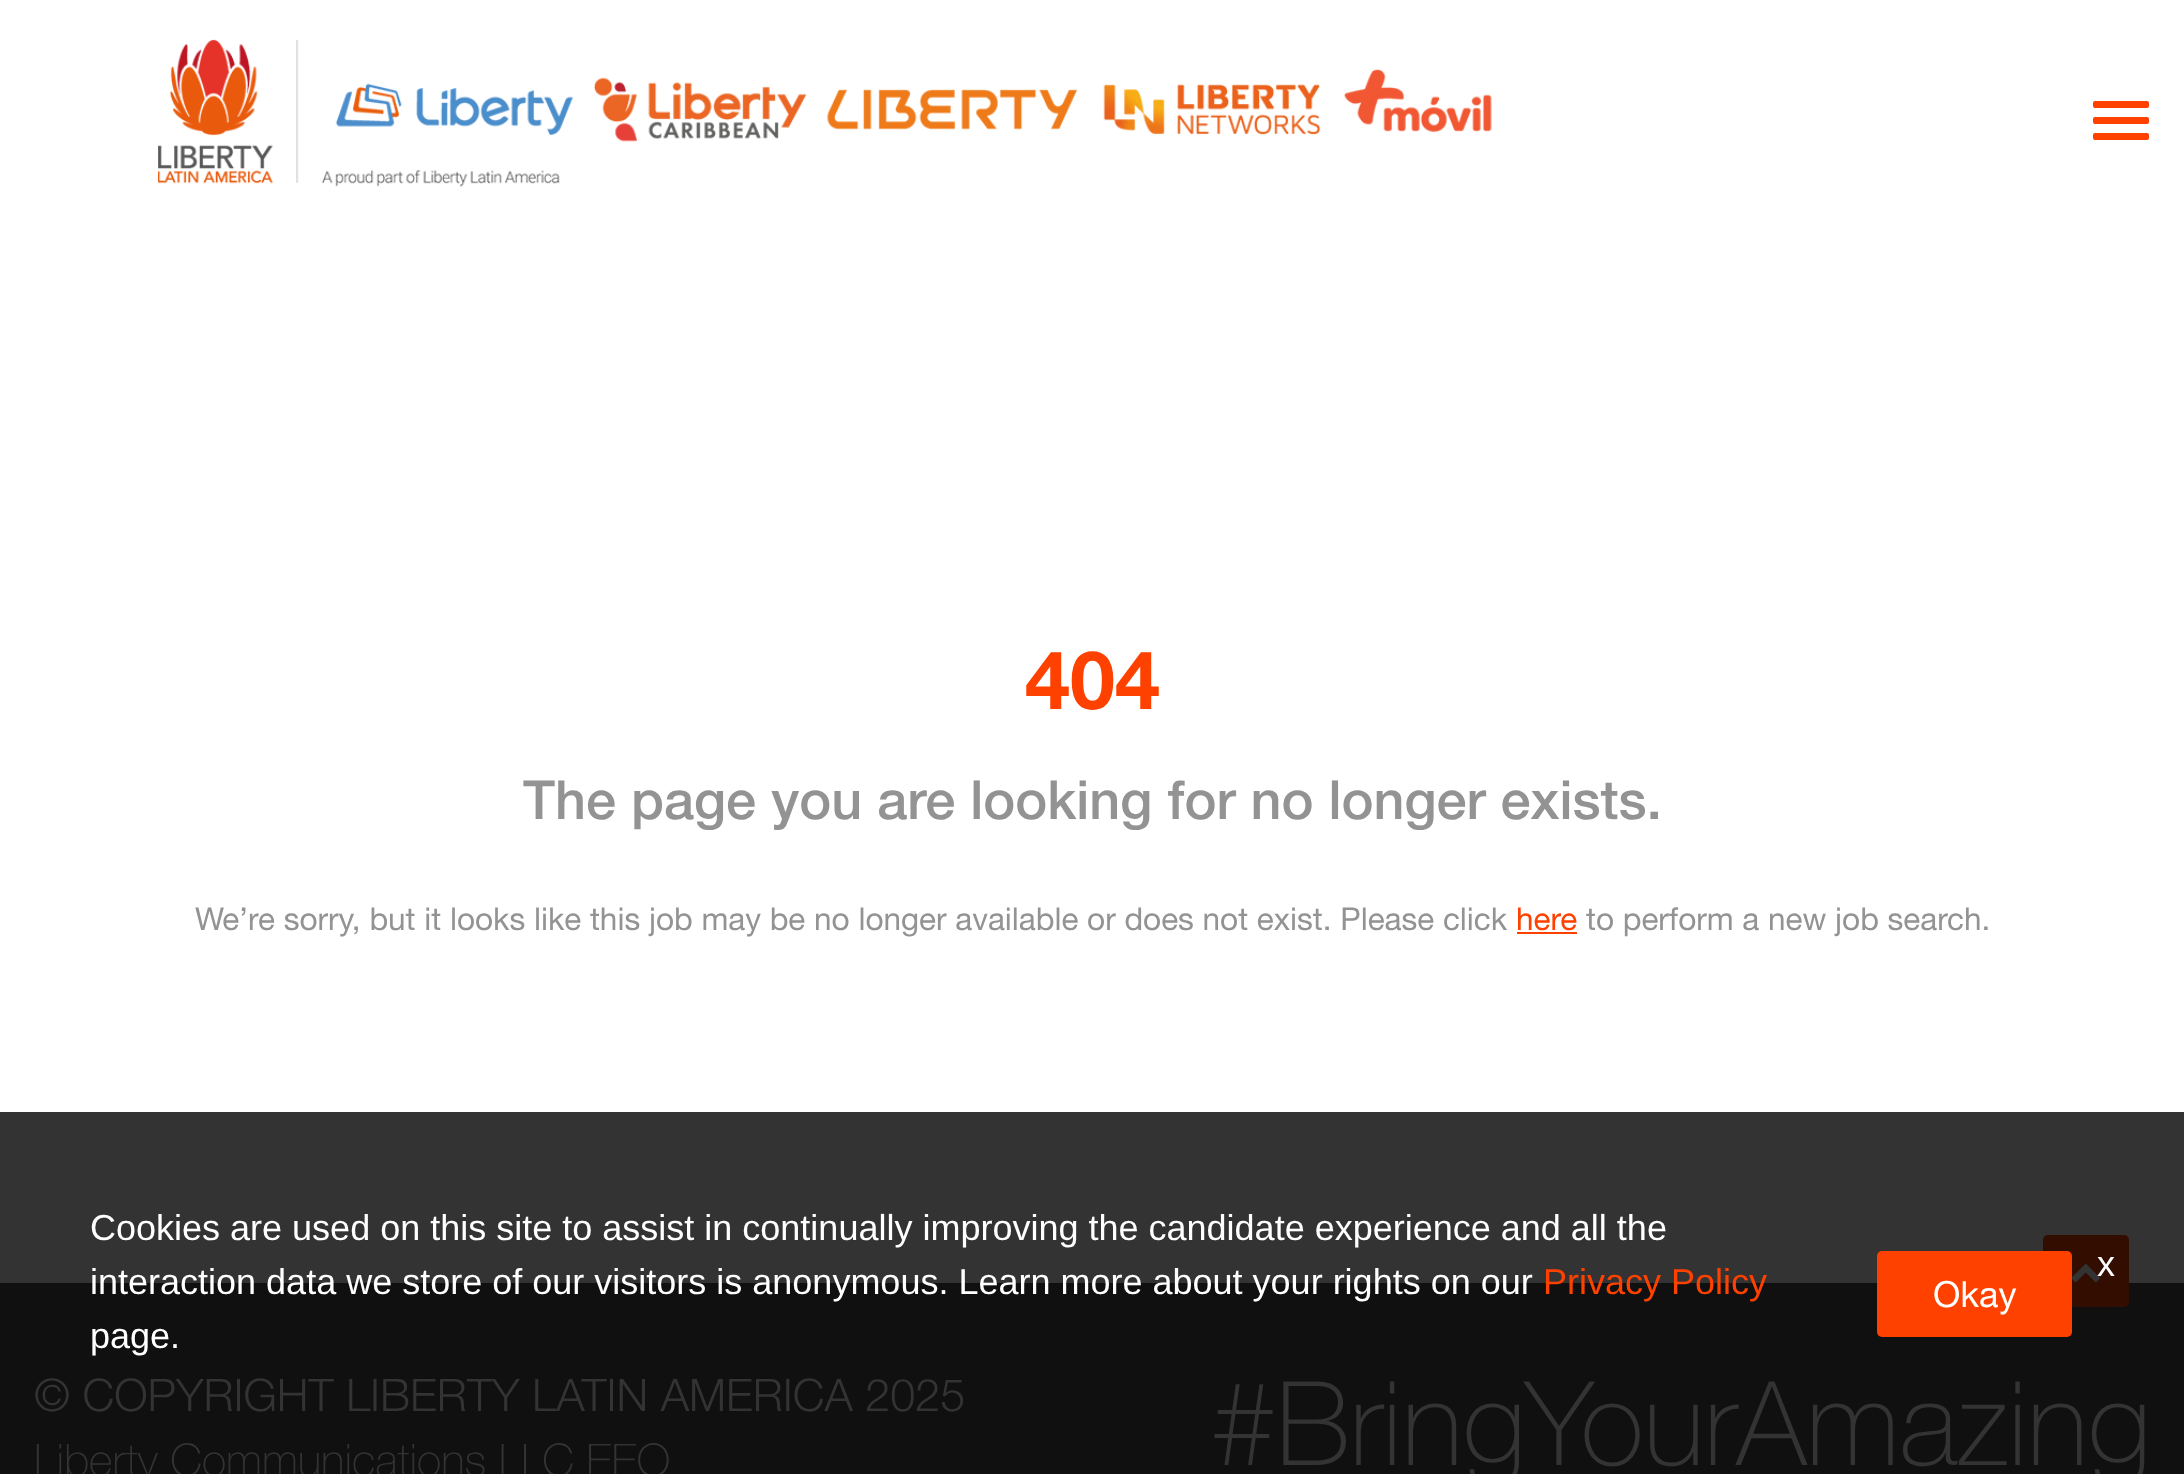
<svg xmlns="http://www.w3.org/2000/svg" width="2184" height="1474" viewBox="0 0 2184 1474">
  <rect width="100%" height="100%" fill="#fff"/>
  <path d="M0 1112h2184v171H0z" fill="#333"/>
  <image x="158" y="39" width="1334" height="148" href="img/1.png"/>
  <rect x="2093" y="101" width="56" height="7" rx="2" fill="#ff4100"/>
  <rect x="2093" y="117" width="56" height="7" rx="2" fill="#ff4100"/>
  <rect x="2093" y="133" width="56" height="7" rx="2" fill="#ff4100"/>
  <path d="M1517 932h60v2H1517z" fill="#ff4100"/>
  <path d="M0 1283h2184v191H0z" fill="#101010"/>
  <rect x="2043" y="1235" width="86" height="72" rx="5" fill="#330d00"/>
  <image x="2072" y="1264" width="28" height="19" href="img/2.png"/>
  <rect x="1877" y="1251" width="195" height="86" rx="5" fill="#ff4100"/>
  <text x="1025" y="709" font-family="Helvetica Neue" font-size="81" font-weight="bold" fill="#ff4100">404</text>
  <text x="523" y="819" font-family="Helvetica Neue" font-size="54" font-weight="500" fill="#939394">The page you are looking for no longer exists.</text>
  <text x="195" y="930" font-family="Helvetica Neue" font-size="31.5" fill="#939394">We’re sorry, but it looks like this job may be no longer available or does not exist. Please click</text>
  <text x="1516" y="930" font-family="Helvetica Neue" font-size="31.5" fill="#ff4100">here</text>
  <text x="1586" y="930" font-family="Helvetica Neue" font-size="31.5" fill="#939394">to perform a new job search.</text>
  <text x="34" y="1411" font-family="Helvetica Neue" font-size="45" font-weight="300" fill="#333">© COPYRIGHT LIBERTY LATIN AMERICA 2025</text>
  <text x="34" y="1476" font-family="Helvetica Neue" font-size="45" font-weight="100" fill="#333">Liberty Communications LLC EEO</text>
  <text x="1211" y="1465" font-family="Helvetica Neue" font-size="117" font-weight="100" fill="#333">#BringYourAmazing</text>
  <g font-family="Liberation Sans" font-size="36" fill="#fff">
    <text x="90" y="1240">Cookies are used on this site to assist in continually improving the candidate experience and all the</text>
    <text x="90" y="1294">interaction data we store of our visitors is anonymous. Learn more about your rights on our</text>
  </g>
  <text x="1543" y="1294" font-family="Liberation Sans" font-size="36" fill="#ff4100">Privacy Policy</text>
  <text x="90" y="1348" font-family="Liberation Sans" font-size="36" fill="#fff">page.</text>
  <text x="1933" y="1307" font-family="Helvetica Neue" font-size="36" fill="#fff">Okay</text>
  <text x="2097" y="1276" font-family="Liberation Sans" font-size="36" fill="#fff">x</text>
</svg>
